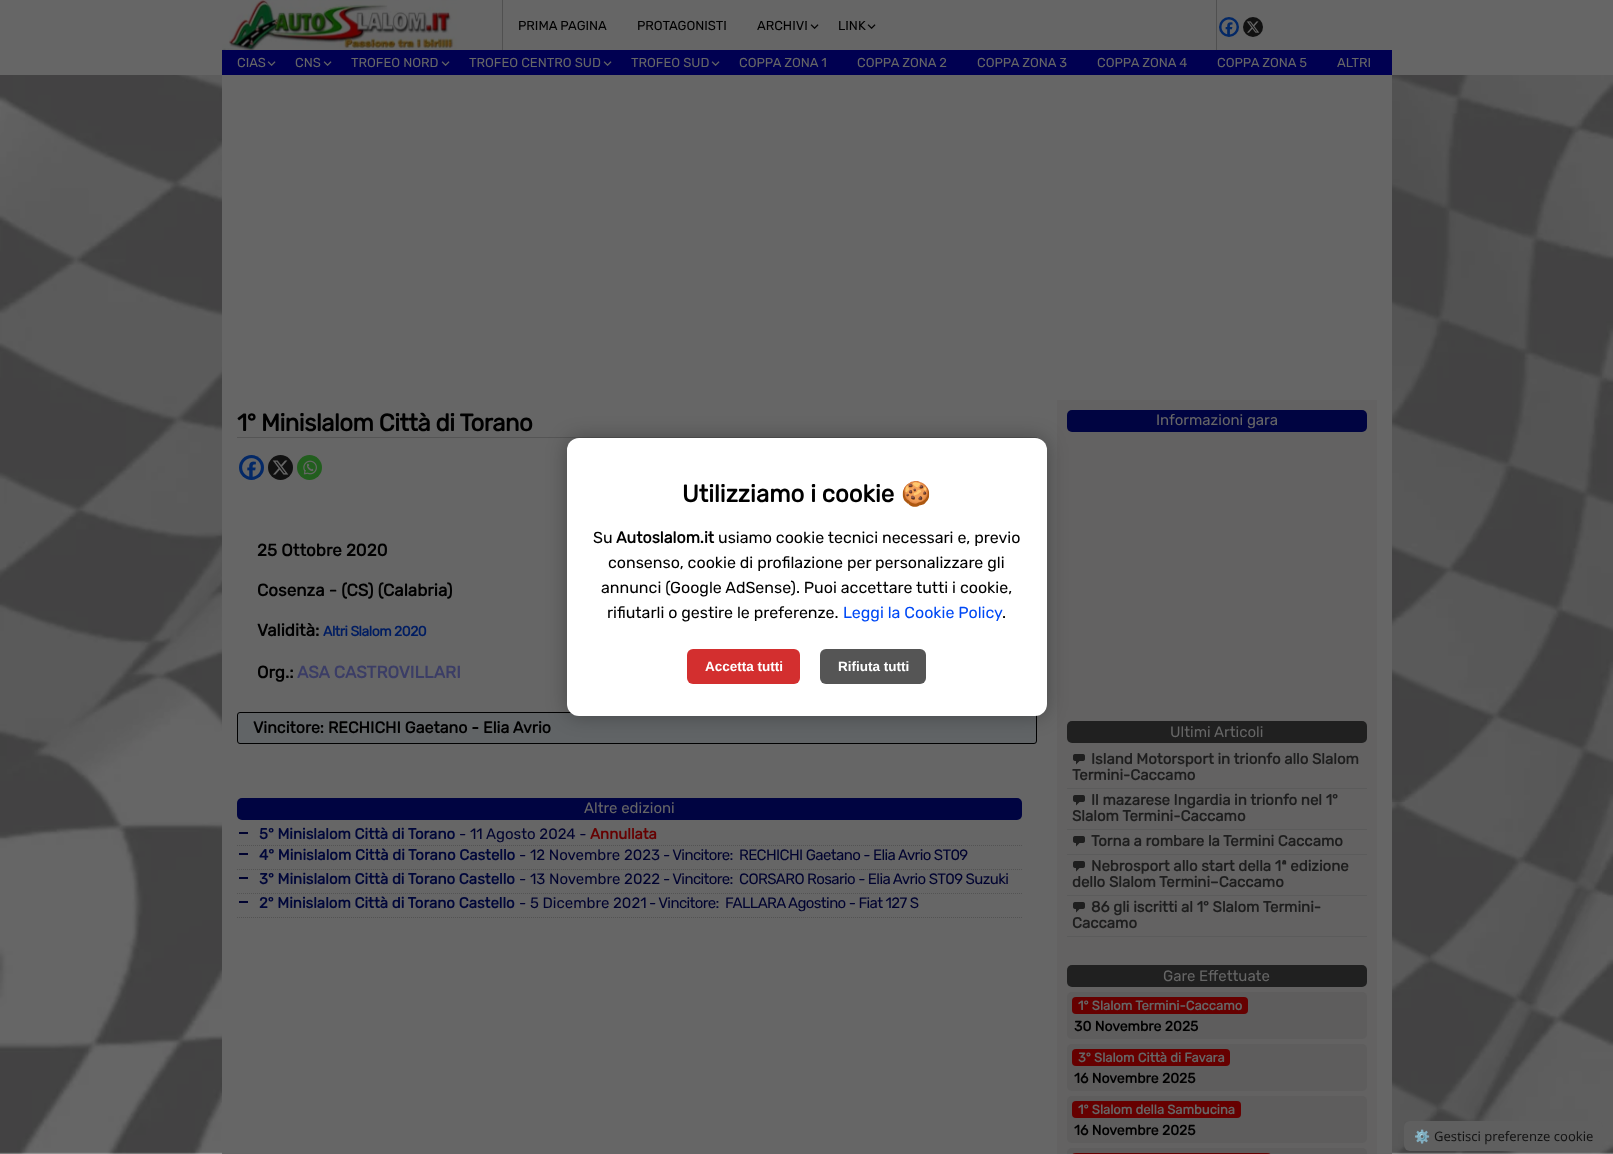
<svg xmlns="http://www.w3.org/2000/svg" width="1613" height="1154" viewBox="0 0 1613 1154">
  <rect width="100%" height="100%" fill="#fff"/>
  <image x="0" y="75" width="1613" height="1079" href="img/1.png"/>
  <path d="M0 0h1613v75H0z" fill="#666"/>
  <image x="222" y="0" width="235" height="50" href="img/2.png"/>
  <path d="M502 0h1v50H502z" fill="#505050"/>
  <image x="810" y="24" width="9" height="5" href="img/3.png"/>
  <image x="867" y="24" width="9" height="5" href="img/3.png"/>
  <path d="M1216 0h1v50H1216z" fill="#505050"/>
  <circle cx="1229" cy="27" r="10" fill="#032866"/>
  <image x="1221" y="19" width="16" height="16" href="img/4.png"/>
  <circle cx="1253" cy="27" r="10" fill="#111"/>
  <image x="1246" y="21" width="14" height="12" href="img/5.png"/>
  <path d="M222 50h1170v25H222z" fill="#000051"/>
  <image x="267" y="61" width="9" height="5" href="img/6.png"/>
  <image x="323" y="61" width="9" height="5" href="img/6.png"/>
  <image x="441" y="61" width="9" height="5" href="img/6.png"/>
  <image x="603" y="61" width="9" height="5" href="img/6.png"/>
  <image x="711" y="61" width="9" height="5" href="img/6.png"/>
  <path d="M222 75h1170v1079H222z" fill="#666"/>
  <path d="M237 437h800v1H237z" fill="#555"/>
  <circle cx="251.5" cy="467.5" r="12.5" fill="#032866"/>
  <image x="242" y="458" width="19" height="19" href="img/7.png"/>
  <circle cx="280.5" cy="467.5" r="12.5" fill="#111"/>
  <image x="272" y="460" width="17" height="15" href="img/8.png"/>
  <circle cx="309.5" cy="467.5" r="12.5" fill="#225e1e"/>
  <image x="303" y="460" width="14" height="15" href="img/9.png"/>
  <rect x="237.5" y="712.5" width="799" height="31" rx="2.5" fill="#616466" stroke="#000"/>
  <path d="M1057 400h320v754H1057z" fill="#636262"/>
  <rect x="1067" y="410" width="300" height="22" rx="5" fill="#000441"/>
  <rect x="1067" y="721" width="300" height="22" rx="5" fill="#202020"/>
  <path d="M1067 788h300v1H1067z" fill="#5b5b5b"/>
  <image x="1073" y="754" width="12" height="11" href="img/10.png"/>
  <path d="M1067 829h300v1H1067z" fill="#5b5b5b"/>
  <image x="1073" y="795" width="12" height="11" href="img/10.png"/>
  <path d="M1067 854h300v1H1067z" fill="#5b5b5b"/>
  <image x="1073" y="836" width="12" height="11" href="img/10.png"/>
  <path d="M1067 895h300v1H1067z" fill="#5b5b5b"/>
  <image x="1073" y="861" width="12" height="11" href="img/10.png"/>
  <path d="M1067 936h300v1H1067z" fill="#5b5b5b"/>
  <image x="1073" y="902" width="12" height="11" href="img/10.png"/>
  <rect x="1067" y="965" width="300" height="22" rx="5" fill="#202020"/>
  <rect x="1067" y="992" width="300" height="47" rx="5" fill="#5e5d5d"/>
  <rect x="1072" y="997" width="176" height="17" rx="4" fill="#600"/>
  <rect x="1067" y="1044" width="300" height="47" rx="5" fill="#5e5d5d"/>
  <rect x="1072" y="1049" width="158" height="17" rx="4" fill="#600"/>
  <rect x="1067" y="1096" width="300" height="47" rx="5" fill="#5e5d5d"/>
  <rect x="1072" y="1101" width="169" height="17" rx="4" fill="#600"/>
  <rect x="1067" y="1148" width="300" height="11" rx="5" fill="#5e5d5d"/>
  <rect x="1072" y="1153" width="199" height="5" rx="4" fill="#600"/>
  <rect x="237" y="798" width="785" height="22" rx="5" fill="#000441"/>
  <path d="M237 845.5H1022" fill="none" stroke="#535353" stroke-dasharray="1 1"/>
  <path d="M239 832h9v2H239z" fill="#000330"/>
  <path d="M237 869.5H1022" fill="none" stroke="#535353" stroke-dasharray="1 1"/>
  <path d="M239 853h9v2H239z" fill="#000330"/>
  <path d="M237 893.5H1022" fill="none" stroke="#535353" stroke-dasharray="1 1"/>
  <path d="M239 877h9v2H239z" fill="#000330"/>
  <path d="M237 917.5H1022" fill="none" stroke="#535353" stroke-dasharray="1 1"/>
  <path d="M239 901h9v2H239z" fill="#000330"/>
  <rect x="567" y="438" width="480" height="278" rx="12" fill="#0000004d" filter="blur(10px)"/>
  <rect x="567" y="438" width="480" height="278" rx="12" fill="#fff"/>
  <rect x="687" y="649" width="113" height="35" rx="6" fill="#d32f2f"/>
  <rect x="820" y="649" width="106" height="35" rx="6" fill="#555"/>
  <rect x="1404" y="1121" width="199" height="30" rx="6" fill="#5f5f5f"/>
  <g font-family="Rubik" font-size="13" fill="#000">
    <text x="518" y="30">PRIMA PAGINA</text>
    <text x="637" y="30">PROTAGONISTI</text>
    <text x="757" y="30">ARCHIVI</text>
    <text x="838" y="30">LINK</text>
  </g>
  <g font-family="Rubik" font-size="13" fill="#666">
    <text x="237" y="67">CIAS</text>
    <text x="295" y="67">CNS</text>
    <text x="351" y="67">TROFEO NORD</text>
    <text x="469" y="67">TROFEO CENTRO SUD</text>
    <text x="631" y="67">TROFEO SUD</text>
    <text x="739" y="67">COPPA ZONA 1</text>
    <text x="857" y="67">COPPA ZONA 2</text>
    <text x="977" y="67">COPPA ZONA 3</text>
    <text x="1097" y="67">COPPA ZONA 4</text>
    <text x="1217" y="67">COPPA ZONA 5</text>
    <text x="1337" y="67">ALTRI</text>
  </g>
  <text x="237" y="431" font-family="Rubik" font-size="24" font-weight="bold" letter-spacing="-0.5" fill="#000">1° Minislalom Città di Torano</text>
  <g font-family="Rubik" font-size="17" font-weight="bold" fill="#000">
    <text x="257" y="556">25 Ottobre 2020</text>
    <text x="257" y="596">Cosenza - (CS) (Calabria)</text>
    <text x="257" y="636">Validità:</text>
  </g>
  <text x="323" y="636" font-family="Rubik" font-size="14" font-weight="bold" letter-spacing="-0.5" fill="#001d62">Altri Slalom 2020</text>
  <text x="257" y="678" font-family="Rubik" font-size="17" font-weight="bold" fill="#000">Org.:</text>
  <text x="297" y="678" font-family="Rubik" font-size="17" font-weight="bold" fill="#3b3d66">ASA CASTROVILLARI</text>
  <text x="253" y="733" font-family="Rubik" font-size="16" font-weight="bold" fill="#000">Vincitore: RECHICHI Gaetano - Elia Avrio</text>
  <g font-family="Rubik" font-size="15" fill="#666">
    <text x="1156" y="425">Informazioni gara</text>
    <text x="1170" y="737">Ultimi Articoli</text>
  </g>
  <g font-family="Rubik" font-size="15" font-weight="bold" fill="#1e1e1e">
    <text x="1091" y="764">Island Motorsport in trionfo allo Slalom</text>
    <text x="1072" y="780">Termini-Caccamo</text>
    <text x="1091" y="805">Il mazarese Ingardia in trionfo nel 1°</text>
    <text x="1072" y="821">Slalom Termini-Caccamo</text>
    <text x="1091" y="846">Torna a rombare la Termini Caccamo</text>
    <text x="1091" y="871">Nebrosport allo start della 1ª edizione</text>
    <text x="1072" y="887">dello Slalom Termini–Caccamo</text>
    <text x="1091" y="912">86 gli iscritti al 1° Slalom Termini-</text>
    <text x="1072" y="928">Caccamo</text>
  </g>
  <text x="1163" y="981" font-family="Rubik" font-size="15" fill="#666">Gare Effettuate</text>
  <text x="1078" y="1010" font-family="Rubik" font-size="13" font-weight="bold" fill="#666">1° Slalom Termini-Caccamo</text>
  <text x="1074" y="1031" font-family="Rubik" font-size="14" font-weight="bold" fill="#000">30 Novembre 2025</text>
  <text x="1078" y="1062" font-family="Rubik" font-size="13" font-weight="bold" fill="#666">3° Slalom Città di Favara</text>
  <text x="1074" y="1083" font-family="Rubik" font-size="14" font-weight="bold" fill="#000">16 Novembre 2025</text>
  <text x="1078" y="1114" font-family="Rubik" font-size="13" font-weight="bold" fill="#666">1° Slalom della Sambucina</text>
  <text x="1074" y="1135" font-family="Rubik" font-size="14" font-weight="bold" fill="#000">16 Novembre 2025</text>
  <text x="584" y="813" font-family="Rubik" font-size="15" fill="#666">Altre edizioni</text>
  <text x="259" y="839" font-family="Rubik" font-size="15" font-weight="bold" fill="#00073a">5° Minislalom Città di Torano</text>
  <text x="459" y="839" font-family="Rubik" font-size="15" fill="#000330">- 11 Agosto 2024 -</text>
  <text x="590" y="839" font-family="Rubik" font-size="15" font-weight="bold" fill="#600">Annullata</text>
  <text x="259" y="860" font-family="Rubik" font-size="15" font-weight="bold" fill="#00073a">4° Minislalom Città di Torano Castello</text>
  <text x="519" y="860" font-family="Rubik" font-size="15" fill="#000330">- 12 Novembre 2023</text>
  <g font-family="Rubik" font-size="15" letter-spacing="-0.6" fill="#000330">
    <text x="663" y="860">- Vincitore:</text>
    <text x="739" y="860">RECHICHI Gaetano - Elia Avrio ST09</text>
  </g>
  <text x="259" y="884" font-family="Rubik" font-size="15" font-weight="bold" fill="#00073a">3° Minislalom Città di Torano Castello</text>
  <text x="519" y="884" font-family="Rubik" font-size="15" fill="#000330">- 13 Novembre 2022</text>
  <g font-family="Rubik" font-size="15" letter-spacing="-0.6" fill="#000330">
    <text x="663" y="884">- Vincitore:</text>
    <text x="739" y="884">CORSARO Rosario - Elia Avrio ST09 Suzuki</text>
  </g>
  <text x="259" y="908" font-family="Rubik" font-size="15" font-weight="bold" fill="#00073a">2° Minislalom Città di Torano Castello</text>
  <text x="519" y="908" font-family="Rubik" font-size="15" fill="#000330">- 5 Dicembre 2021</text>
  <g font-family="Rubik" font-size="15" letter-spacing="-0.6" fill="#000330">
    <text x="649" y="908">- Vincitore:</text>
    <text x="725" y="908">FALLARA Agostino - Fiat 127 S</text>
  </g>
  <text x="682" y="502" font-family="Rubik" font-size="24" font-weight="bold" fill="#000">Utilizziamo i cookie</text>
  <text x="901" y="502" font-family="Noto Color Emoji" font-size="24" font-weight="bold" fill="#000">🍪</text>
  <text x="593" y="543" font-family="Rubik" font-size="16" fill="#000">Su</text>
  <text x="616" y="543" font-family="Rubik" font-size="16" font-weight="bold" fill="#000">Autoslalom.it</text>
  <g font-family="Rubik" font-size="16" fill="#000">
    <text x="718" y="543">usiamo cookie tecnici necessari e, previo</text>
    <text x="608" y="568">consenso, cookie di profilazione per personalizzare gli</text>
    <text x="601" y="593">annunci (Google AdSense). Puoi accettare tutti i cookie,</text>
    <text x="607" y="618">rifiutarli o gestire le preferenze.</text>
  </g>
  <text x="843" y="618" font-family="Rubik" font-size="16" fill="#0049f5">Leggi la Cookie Policy</text>
  <text x="1002" y="618" font-family="Rubik" font-size="16" fill="#000">.</text>
  <g font-family="Liberation Sans" font-size="13.5" font-weight="bold" fill="#fff">
    <text x="705" y="671">Accetta tutti</text>
    <text x="838" y="671">Rifiuta tutti</text>
  </g>
  <text x="1414" y="1141" font-family="Noto Color Emoji" font-size="13" fill="#141414">⚙️</text>
  <text x="1434" y="1141" font-family="Noto Sans" font-size="13" fill="#141414">Gestisci preferenze cookie</text>
</svg>
